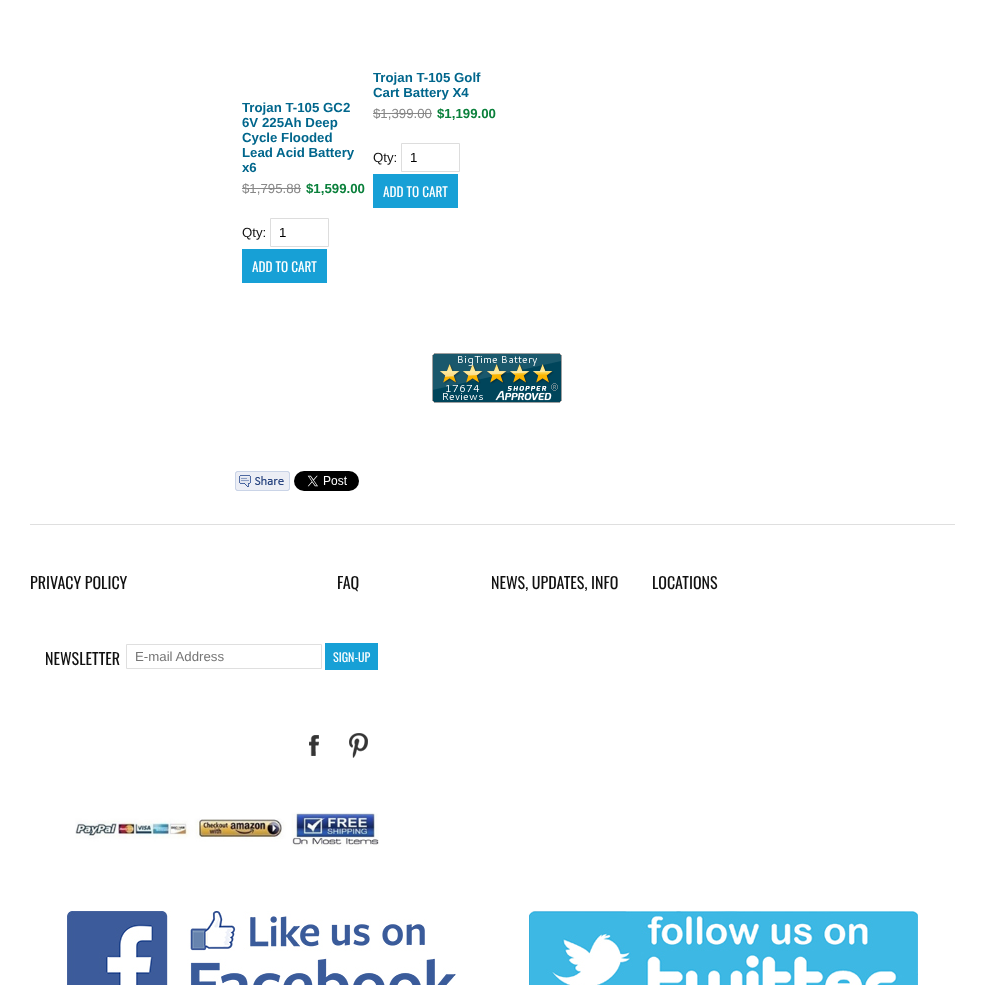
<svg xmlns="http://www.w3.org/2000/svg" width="985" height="985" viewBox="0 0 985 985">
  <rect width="100%" height="100%" fill="#fff"/>
  <path d="M242 188h59v1H242z" fill="#888"/>
  <path d="M270.5 218.5h58v28H270.5z" fill="none" stroke="#ddd"/>
  <path d="M242 249h85v34H242z" fill="#17a0d6"/>
  <path d="M373 113h59v1H373z" fill="#888"/>
  <path d="M401.5 143.5h58v28H401.5z" fill="none" stroke="#ddd"/>
  <path d="M373 174h85v34H373z" fill="#17a0d6"/>
  <image x="432" y="353" width="130" height="50" href="img/1.png"/>
  <image x="235" y="471" width="55" height="20" href="img/2.png"/>
  <image x="294" y="471" width="65" height="20" href="img/3.png"/>
  <path d="M30 524h925v1H30z" fill="#dfdfdf"/>
  <path d="M126.5 644.5h195v24H126.5z" fill="none" stroke="#dfdfdf"/>
  <path d="M325 643h53v27H325z" fill="#17a0d6"/>
  <image x="309" y="735" width="10" height="21" href="img/4.png"/>
  <image x="349" y="733" width="19" height="25" href="img/5.png"/>
  <image x="75" y="812" width="304" height="35" href="img/6.png"/>
  <image x="67" y="911" width="389" height="74" href="img/7.png"/>
  <image x="529" y="911" width="389" height="74" href="img/8.png"/>
  <g font-family="Liberation Sans" font-size="13.25" font-weight="bold" fill="#00668c">
    <text x="242" y="112">Trojan T-105 GC2</text>
    <text x="242" y="127">6V 225Ah Deep</text>
    <text x="242" y="142">Cycle Flooded</text>
    <text x="242" y="157">Lead Acid Battery</text>
    <text x="242" y="172">x6</text>
  </g>
  <text x="242" y="193" font-family="Liberation Sans" font-size="13.25" fill="#888">$1,795.88</text>
  <text x="306" y="193" font-family="Liberation Sans" font-size="13.25" font-weight="bold" fill="#0a803b">$1,599.00</text>
  <text x="242" y="237" font-family="Liberation Sans" font-size="13.25" fill="#111">Qty:</text>
  <text x="279" y="237" font-family="Liberation Sans" font-size="13.25" fill="#000">1</text>
  <text x="252" y="272" font-family="Oswald" font-size="13.25" fill="#fff">ADD TO CART</text>
  <g font-family="Liberation Sans" font-size="13.25" font-weight="bold" fill="#00668c">
    <text x="373" y="82">Trojan T-105 Golf</text>
    <text x="373" y="97">Cart Battery X4</text>
  </g>
  <text x="373" y="118" font-family="Liberation Sans" font-size="13.25" fill="#888">$1,399.00</text>
  <text x="437" y="118" font-family="Liberation Sans" font-size="13.25" font-weight="bold" fill="#0a803b">$1,199.00</text>
  <text x="373" y="162" font-family="Liberation Sans" font-size="13.25" fill="#111">Qty:</text>
  <text x="410" y="162" font-family="Liberation Sans" font-size="13.25" fill="#000">1</text>
  <text x="383" y="197" font-family="Oswald" font-size="13.25" fill="#fff">ADD TO CART</text>
  <g font-family="Oswald" font-size="16" fill="#111">
    <text x="30" y="589">PRIVACY POLICY</text>
    <text x="337" y="589">FAQ</text>
    <text x="491" y="589">NEWS, UPDATES, INFO</text>
    <text x="652" y="589">LOCATIONS</text>
    <text x="45" y="665">NEWSLETTER</text>
  </g>
  <text x="135" y="661" font-family="Liberation Sans" font-size="13.25" fill="#757575">E-mail Address</text>
  <text x="333" y="662" font-family="Oswald" font-size="12" fill="#fff">SIGN-UP</text>
</svg>
